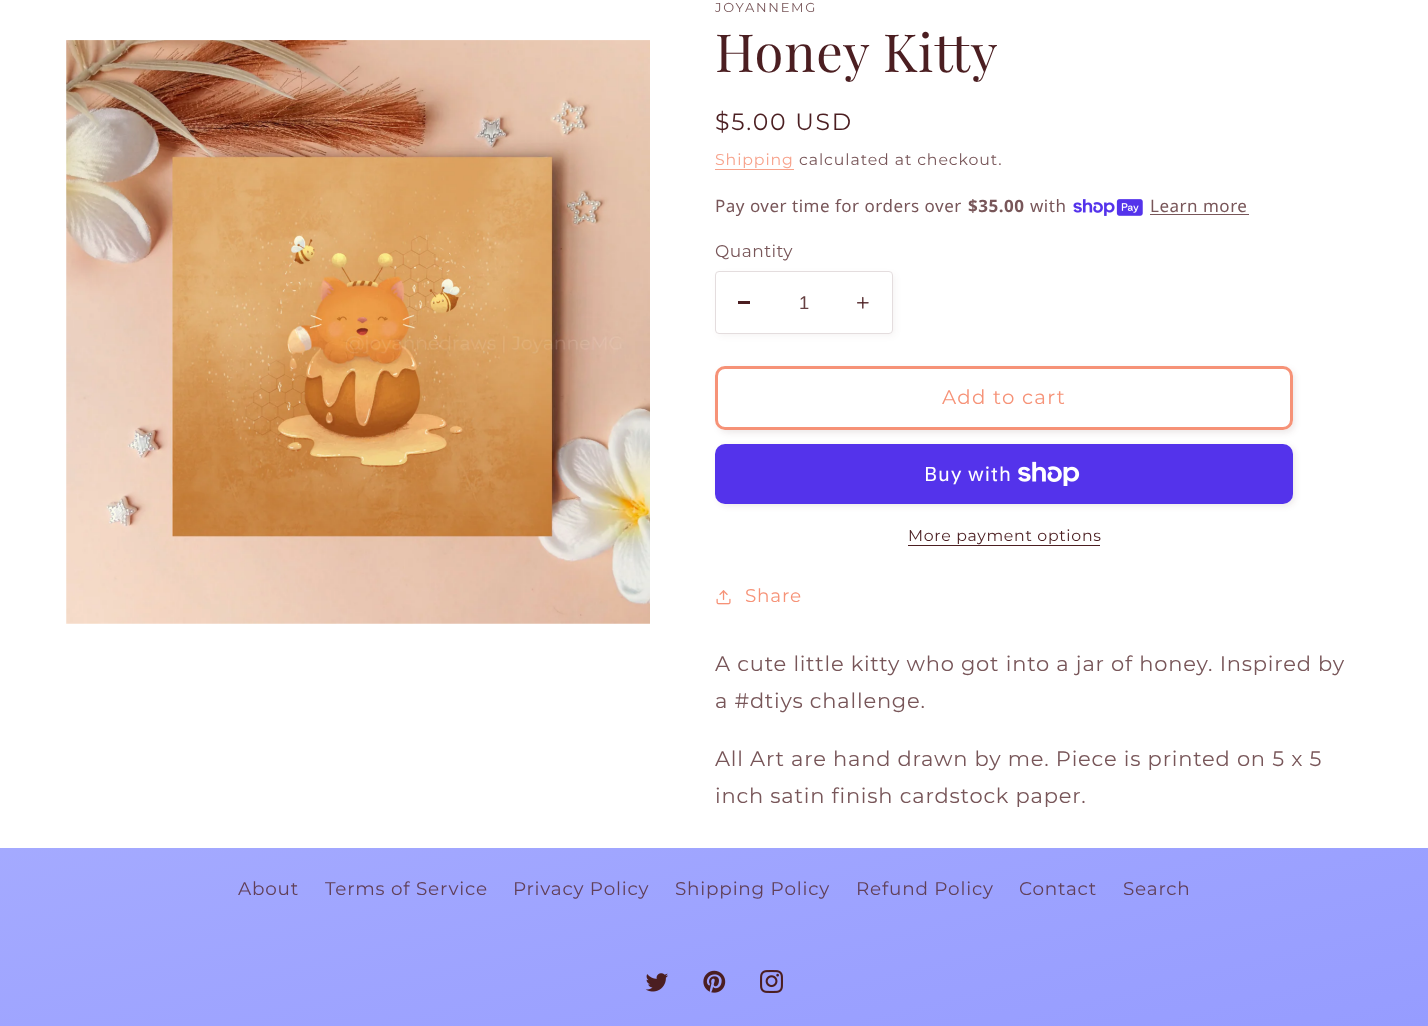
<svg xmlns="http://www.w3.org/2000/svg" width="1428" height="1026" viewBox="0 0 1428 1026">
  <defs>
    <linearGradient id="g1" gradientUnits="userSpaceOnUse" x1="552" y1="-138" x2="877" y2="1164"><stop offset="0.07" stop-color="#b8bdff"/><stop offset="1" stop-color="#969cff"/></linearGradient>
  </defs>
  <rect width="100%" height="100%" fill="#fff"/>
  <image x="66" y="40" width="584" height="584" href="img/1.png"/>
  <path d="M715 169h79v1H715z" fill="#f7a28b"/>
  <image x="1073" y="199" width="70" height="17" href="img/2.png"/>
  <path d="M1150 214h99v1H1150z" fill="#785659"/>
  <rect x="718" y="274" width="177" height="62" rx="4" fill="#4b1e210d" filter="blur(3px)"/>
  <rect x="715" y="271" width="178" height="63" rx="4" fill="#fff"/>
  <path d="M738 301h12v3H738z" fill="#4b1e21"/>
  <image x="857" y="296" width="12" height="13" href="img/3.png"/>
  <rect x="715.5" y="271.5" width="177" height="62" rx="3.5" fill="none" stroke="#e4ddde"/>
  <rect x="718" y="369" width="577" height="64" rx="10" fill="#4b1e211a" filter="blur(3px)"/>
  <rect x="715" y="366" width="578" height="64" rx="10" fill="#fff"/>
  <rect x="716.5" y="367.5" width="575" height="61" rx="8.5" fill="none" stroke="#fff" stroke-width="3"/>
  <rect x="716.5" y="367.5" width="575" height="61" rx="8.5" fill="none" stroke="#f69277" stroke-width="3"/>
  <rect x="718" y="446" width="577" height="60" rx="10" fill="#4b1e211a" filter="blur(3px)"/>
  <rect x="715" y="444" width="578" height="60" rx="10" fill="#5433eb"/>
  <image x="1018" y="461" width="62" height="25" href="img/4.png"/>
  <path d="M908 545h192v1H908z" fill="#4b1e21"/>
  <image x="716" y="590" width="15" height="15" href="img/5.png"/>
  <path d="M0 848h1428v178H0z" fill="url(#g1)"/>
  <image x="645" y="973" width="23" height="19" href="img/6.png"/>
  <image x="703" y="970" width="23" height="23" href="img/7.png"/>
  <image x="760" y="970" width="23" height="23" href="img/8.png"/>
  <text x="715" y="12" font-family="Montserrat" font-size="13" letter-spacing="1.75" fill="#785659">JOYANNEMG</text>
  <text x="715" y="72" font-family="Playfair Display" font-size="52.5" letter-spacing="0.8" fill="#4b1e21">Honey Kitty</text>
  <text x="715" y="130" font-family="Montserrat" font-size="23.5" letter-spacing="1.75" fill="#4b1e21">$5.00 USD</text>
  <text x="715" y="165" font-family="Montserrat" font-size="15.75" letter-spacing="0.9" fill="#f7a28b">Shipping</text>
  <text x="799" y="165" font-family="Montserrat" font-size="15.75" letter-spacing="0.9" fill="#785659">calculated at checkout.</text>
  <text x="715" y="212" font-family="Noto Sans" font-size="17" letter-spacing="0.5" fill="#785659">Pay over time for orders over</text>
  <text x="968" y="212" font-family="Noto Sans" font-size="17" font-weight="bold" letter-spacing="0.5" fill="#785659">$35.00</text>
  <g font-family="Noto Sans" font-size="17" letter-spacing="0.5" fill="#785659">
    <text x="1030" y="212">with</text>
    <text x="1150" y="212">Learn more</text>
  </g>
  <text x="715" y="257" font-family="Montserrat" font-size="17" letter-spacing="0.5" fill="#785659">Quantity</text>
  <text x="799" y="309" font-family="Liberation Sans" font-size="18.4" fill="#664042">1</text>
  <text x="942" y="404" font-family="Montserrat" font-size="19.75" letter-spacing="1.25" fill="#f69277">Add to cart</text>
  <text x="924" y="481" font-family="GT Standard" font-size="20" letter-spacing="0.8" fill="#fff">Buy with</text>
  <text x="908" y="541" font-family="Montserrat" font-size="15.75" letter-spacing="0.7" fill="#4b1e21">More payment options</text>
  <text x="745" y="602" font-family="Montserrat" font-size="18.4" letter-spacing="0.8" fill="#f69277">Share</text>
  <g font-family="Montserrat" font-size="21" letter-spacing="0.8" fill="#785659">
    <text x="715" y="671">A cute little kitty who got into a jar of honey. Inspired by</text>
    <text x="715" y="708">a #dtiys challenge.</text>
    <text x="715" y="766">All Art are hand drawn by me. Piece is printed on 5 x 5</text>
    <text x="715" y="803">inch satin finish cardstock paper.</text>
  </g>
  <g font-family="Montserrat" font-size="18.4" letter-spacing="0.8" fill="#614059">
    <text x="238" y="895">About</text>
    <text x="325" y="895">Terms of Service</text>
    <text x="513" y="895">Privacy Policy</text>
    <text x="675" y="895">Shipping Policy</text>
    <text x="856" y="895">Refund Policy</text>
    <text x="1019" y="895">Contact</text>
    <text x="1123" y="895">Search</text>
  </g>
</svg>
